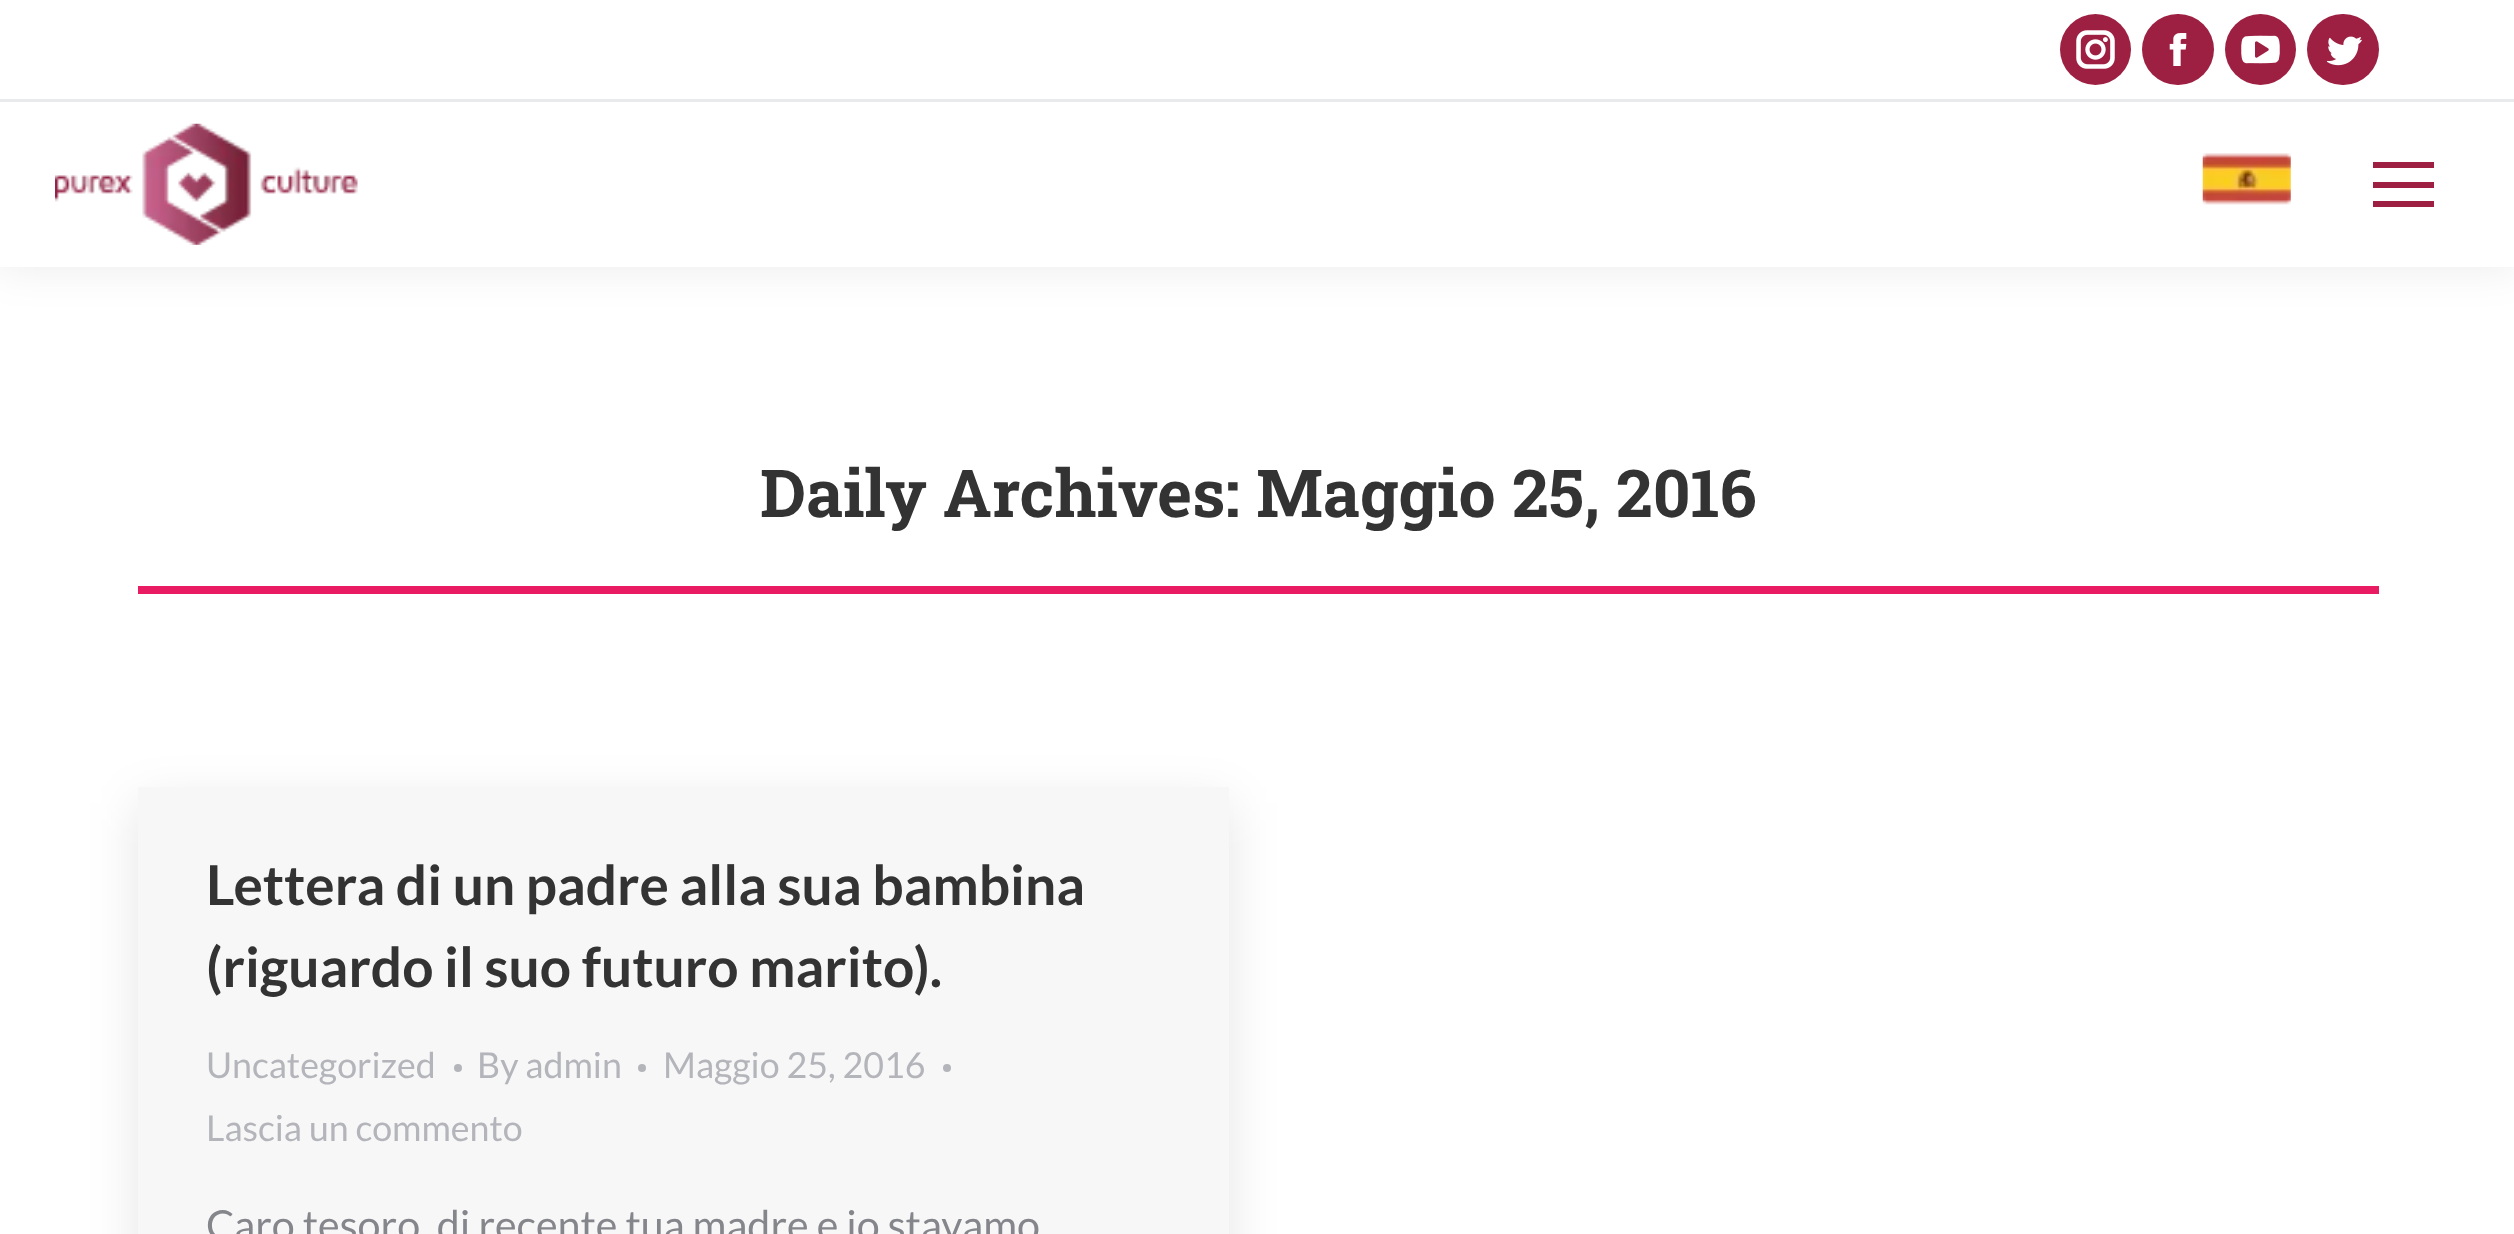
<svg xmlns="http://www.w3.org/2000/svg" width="2514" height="1234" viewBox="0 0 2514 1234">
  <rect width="100%" height="100%" fill="#fff"/>
  <path d="M-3 -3h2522v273H-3z" fill="#00000012" filter="blur(20.5px)"/>
  <path d="M0 0h2514v267H0z" fill="#fff"/>
  <circle cx="2095.5" cy="49.5" r="35.5" fill="#9d2042"/>
  <image x="2076" y="30" width="39" height="39" href="img/1.png"/>
  <rect x="2142" y="14" width="72" height="71" rx="35.5" fill="#9d2042"/>
  <image x="2169" y="33" width="18" height="33" href="img/2.png"/>
  <circle cx="2260.5" cy="49.5" r="35.5" fill="#9d2042"/>
  <image x="2241" y="35" width="39" height="29" href="img/3.png"/>
  <rect x="2307" y="14" width="72" height="71" rx="35.5" fill="#9d2042"/>
  <image x="2326" y="36" width="36" height="30" href="img/4.png"/>
  <path d="M0 99h2514v3H0z" fill="#e9eaec"/>
  <image x="55" y="123" width="303" height="122" href="img/5.png"/>
  <image x="2202" y="153" width="89" height="52" href="img/6.png"/>
  <path d="M2373 162h61v6H2373z" fill="#9d2042"/>
  <path d="M2373 182h61v6H2373z" fill="#9d2042"/>
  <path d="M2373 201h61v6H2373z" fill="#9d2042"/>
  <path d="M138 586h2241v8H138z" fill="#e91c63"/>
  <path d="M138 803h1091v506H138z" fill="#0000001a" filter="blur(25px)"/>
  <path d="M138 787h1091v447H138z" fill="#f7f7f7"/>
  <circle cx="458" cy="1068" r="4" fill="#b4b5bb"/>
  <circle cx="642" cy="1068" r="4" fill="#b4b5bb"/>
  <circle cx="947" cy="1068" r="4" fill="#b4b5bb"/>
  <text x="760" y="517" font-family="Roboto Slab" font-size="66" font-weight="bold" fill="#333">Daily Archives: Maggio 25, 2016</text>
  <g font-family="Lato" font-size="55" font-weight="bold" fill="#333">
    <text x="206" y="905">Lettera di un padre alla sua bambina</text>
    <text x="206" y="987">(riguardo il suo futuro marito).</text>
  </g>
  <g font-family="Lato" font-size="35.75" fill="#b4b5bb">
    <text x="206" y="1078">Uncategorized</text>
    <text x="477" y="1078">By admin</text>
    <text x="663" y="1078">Maggio 25, 2016</text>
    <text x="206" y="1141">Lascia un commento</text>
  </g>
  <text x="206" y="1240" font-family="Lato" font-size="41.25" fill="#85868c">Caro tesoro, di recente tua madre e io stavamo</text>
</svg>
